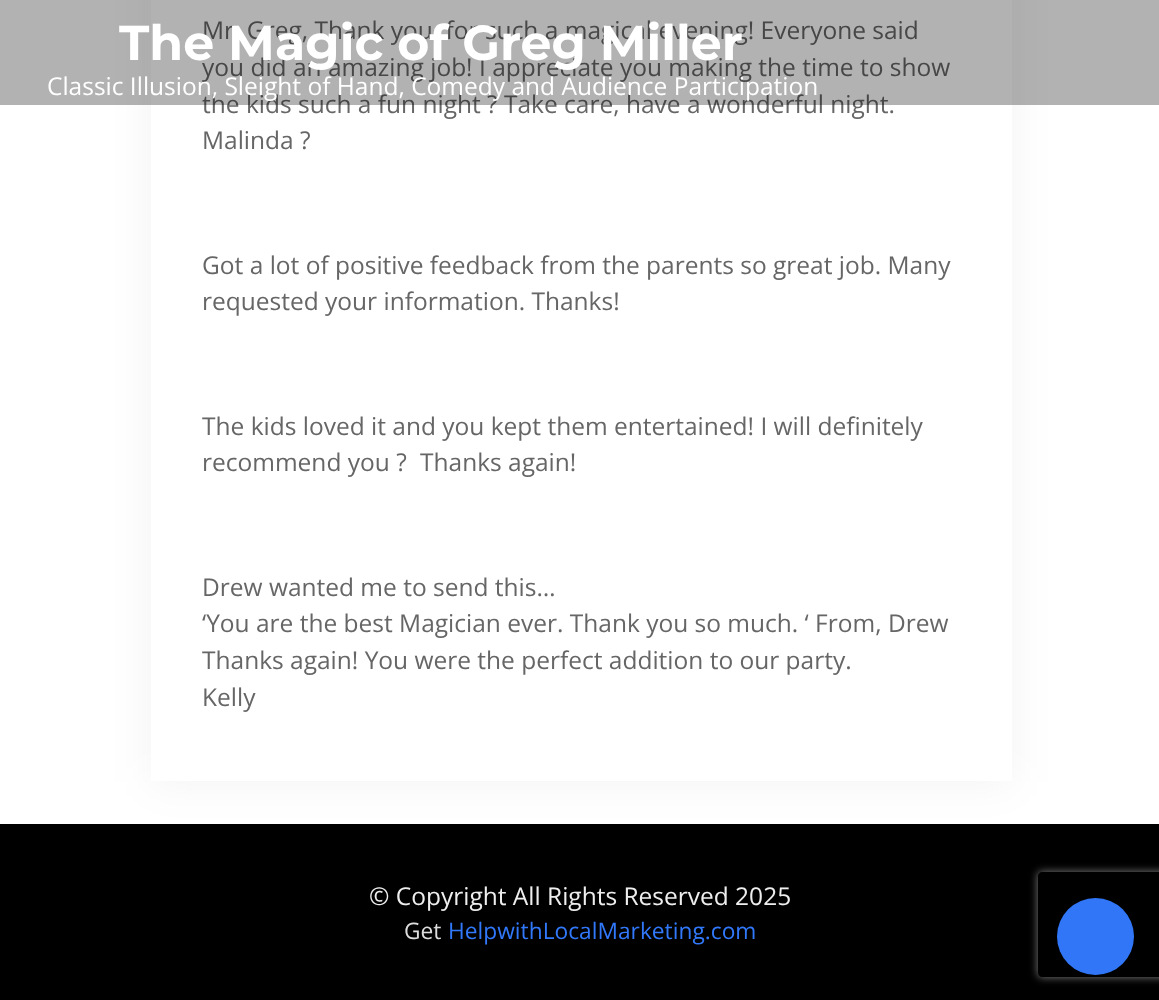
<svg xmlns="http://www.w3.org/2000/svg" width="1159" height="1000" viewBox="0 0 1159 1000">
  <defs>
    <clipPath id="clip1"><path d="M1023 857H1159V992H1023ZM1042 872H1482C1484 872 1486 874 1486 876V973C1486 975 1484 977 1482 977H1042C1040 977 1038 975 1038 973V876C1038 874 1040 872 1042 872Z" clip-rule="evenodd"/></clipPath>
  </defs>
  <rect width="100%" height="100%" fill="#fff"/>
  <path d="M0 824h1159v176H0z" fill="#000"/>
  <path d="M151 -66h861v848H151z" fill="#0000000d" filter="blur(22px)"/>
  <path d="M151 0h861v781H151z" fill="#fff"/>
  <g clip-path="url(#clip1)">
    <rect x="1038" y="872" width="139" height="105" rx="4" fill="#808080" filter="blur(4.5px)"/>
  </g>
  <circle cx="1095.5" cy="936.5" r="38.5" fill="#3076f7"/>
  <g font-family="Open Sans" font-size="24.5" fill="#666">
    <text x="202" y="39">Mr. Greg, Thank you, for such a magical evening! Everyone said</text>
    <text x="202" y="76">you did an amazing job! I appreciate you making the time to show</text>
    <text x="202" y="113">the kids such a fun night ? Take care, have a wonderful night.</text>
    <text x="202" y="149">Malinda ?</text>
    <text x="202" y="274">Got a lot of positive feedback from the parents so great job. Many</text>
    <text x="202" y="310">requested your information. Thanks!</text>
    <text x="202" y="435">The kids loved it and you kept them entertained! I will definitely</text>
    <text x="202" y="471">recommend you ?</text>
    <text x="420" y="471">Thanks again!</text>
    <text x="202" y="596">Drew wanted me to send this…</text>
    <text x="202" y="632">‘You are the best Magician ever. Thank you so much. ‘ From, Drew</text>
    <text x="202" y="669">Thanks again! You were the perfect addition to our party.</text>
    <text x="202" y="706">Kelly</text>
  </g>
  <path d="M0 0h1159v105H0z" fill="#0000004d"/>
  <text x="119" y="60" font-family="Montserrat" font-size="49" font-weight="bold" fill="#fff">The Magic of Greg Miller</text>
  <text x="47" y="95" font-family="Open Sans" font-size="24.5" fill="#fff">Classic Illusion, Sleight of Hand, Comedy and Audience Participation</text>
  <text x="369" y="905" font-family="Open Sans" font-size="24.5" fill="#eee">© Copyright All Rights Reserved 2025</text>
  <text x="404" y="939" font-family="Open Sans" font-size="22.75" fill="#ddd">Get</text>
  <text x="448" y="939" font-family="Open Sans" font-size="22.75" fill="#3178fb">HelpwithLocalMarketing.com</text>
</svg>
